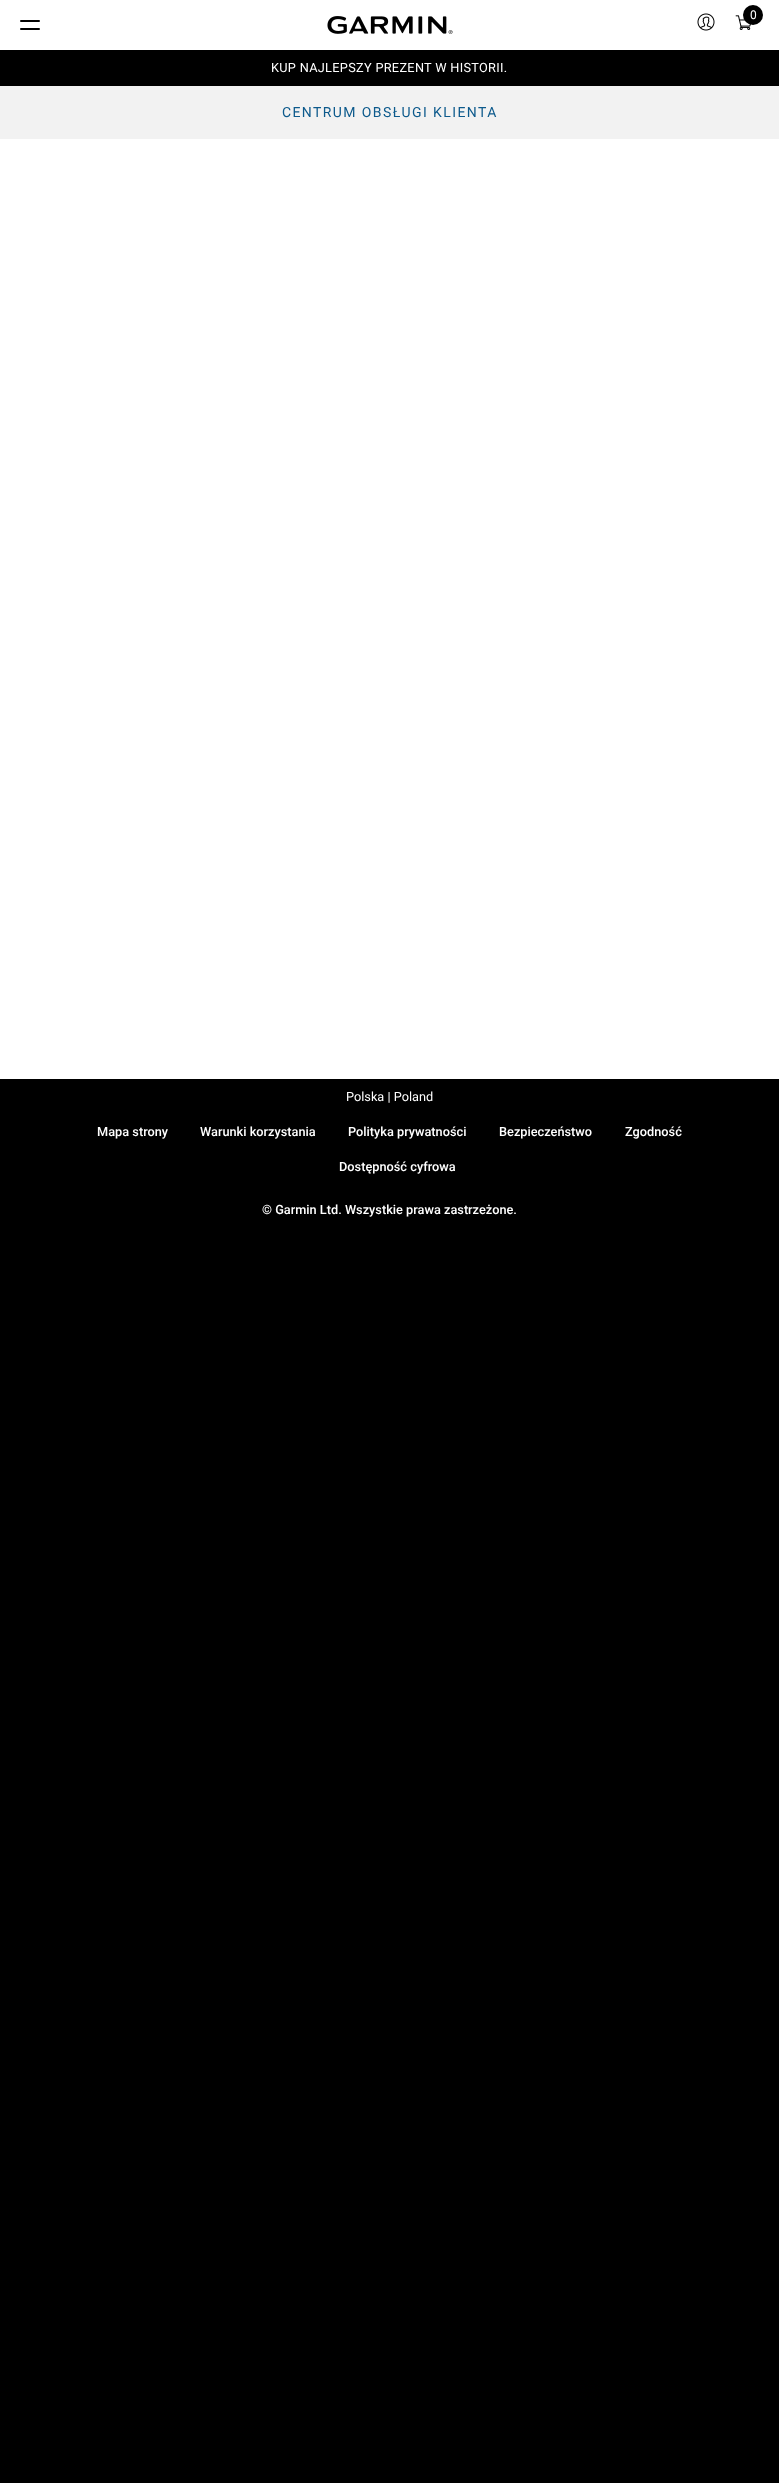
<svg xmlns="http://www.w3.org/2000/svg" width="779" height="2484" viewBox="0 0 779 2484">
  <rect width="100%" height="100%" fill="#000"/>
  <path d="M0 0h779v50H0z" fill="#fff"/>
  <image x="697" y="13" width="18" height="18" href="img/1.png"/>
  <image x="735" y="15" width="16" height="15" href="img/2.png"/>
  <circle cx="753" cy="15" r="10" fill="#000"/>
  <rect x="20" y="20" width="20" height="2" rx="1" fill="#000"/>
  <rect x="20" y="28" width="20" height="2" rx="1" fill="#000"/>
  <image x="327" y="16" width="126" height="18" href="img/3.png"/>
  <path d="M0 139h779v940H0z" fill="#fff"/>
  <path d="M0 86h779v53H0z" fill="#f2f2f2"/>
  <path d="M0 2483h779v1H0z" fill="#fff"/>
  <text x="750" y="19" font-family="Roboto" font-size="12" fill="#fff">0</text>
  <text x="271" y="72" font-family="Roboto" font-size="12.75" letter-spacing="0.3" fill="#fff">KUP NAJLEPSZY PREZENT W HISTORII.</text>
  <text x="282" y="117" font-family="Roboto" font-size="14" letter-spacing="1.4" fill="#0d5a8c">CENTRUM OBSŁUGI KLIENTA</text>
  <text x="346" y="1101" font-family="Roboto" font-size="12.75" fill="#fff">Polska | Poland</text>
  <g font-family="Roboto" font-size="12.75" font-weight="500" fill="#fff">
    <text x="97" y="1136">Mapa strony</text>
    <text x="200" y="1136">Warunki korzystania</text>
    <text x="348" y="1136">Polityka prywatności</text>
    <text x="499" y="1136">Bezpieczeństwo</text>
    <text x="625" y="1136">Zgodność</text>
    <text x="339" y="1171">Dostępność cyfrowa</text>
    <text x="262" y="1214">© Garmin Ltd. Wszystkie prawa zastrzeżone.</text>
  </g>
</svg>
